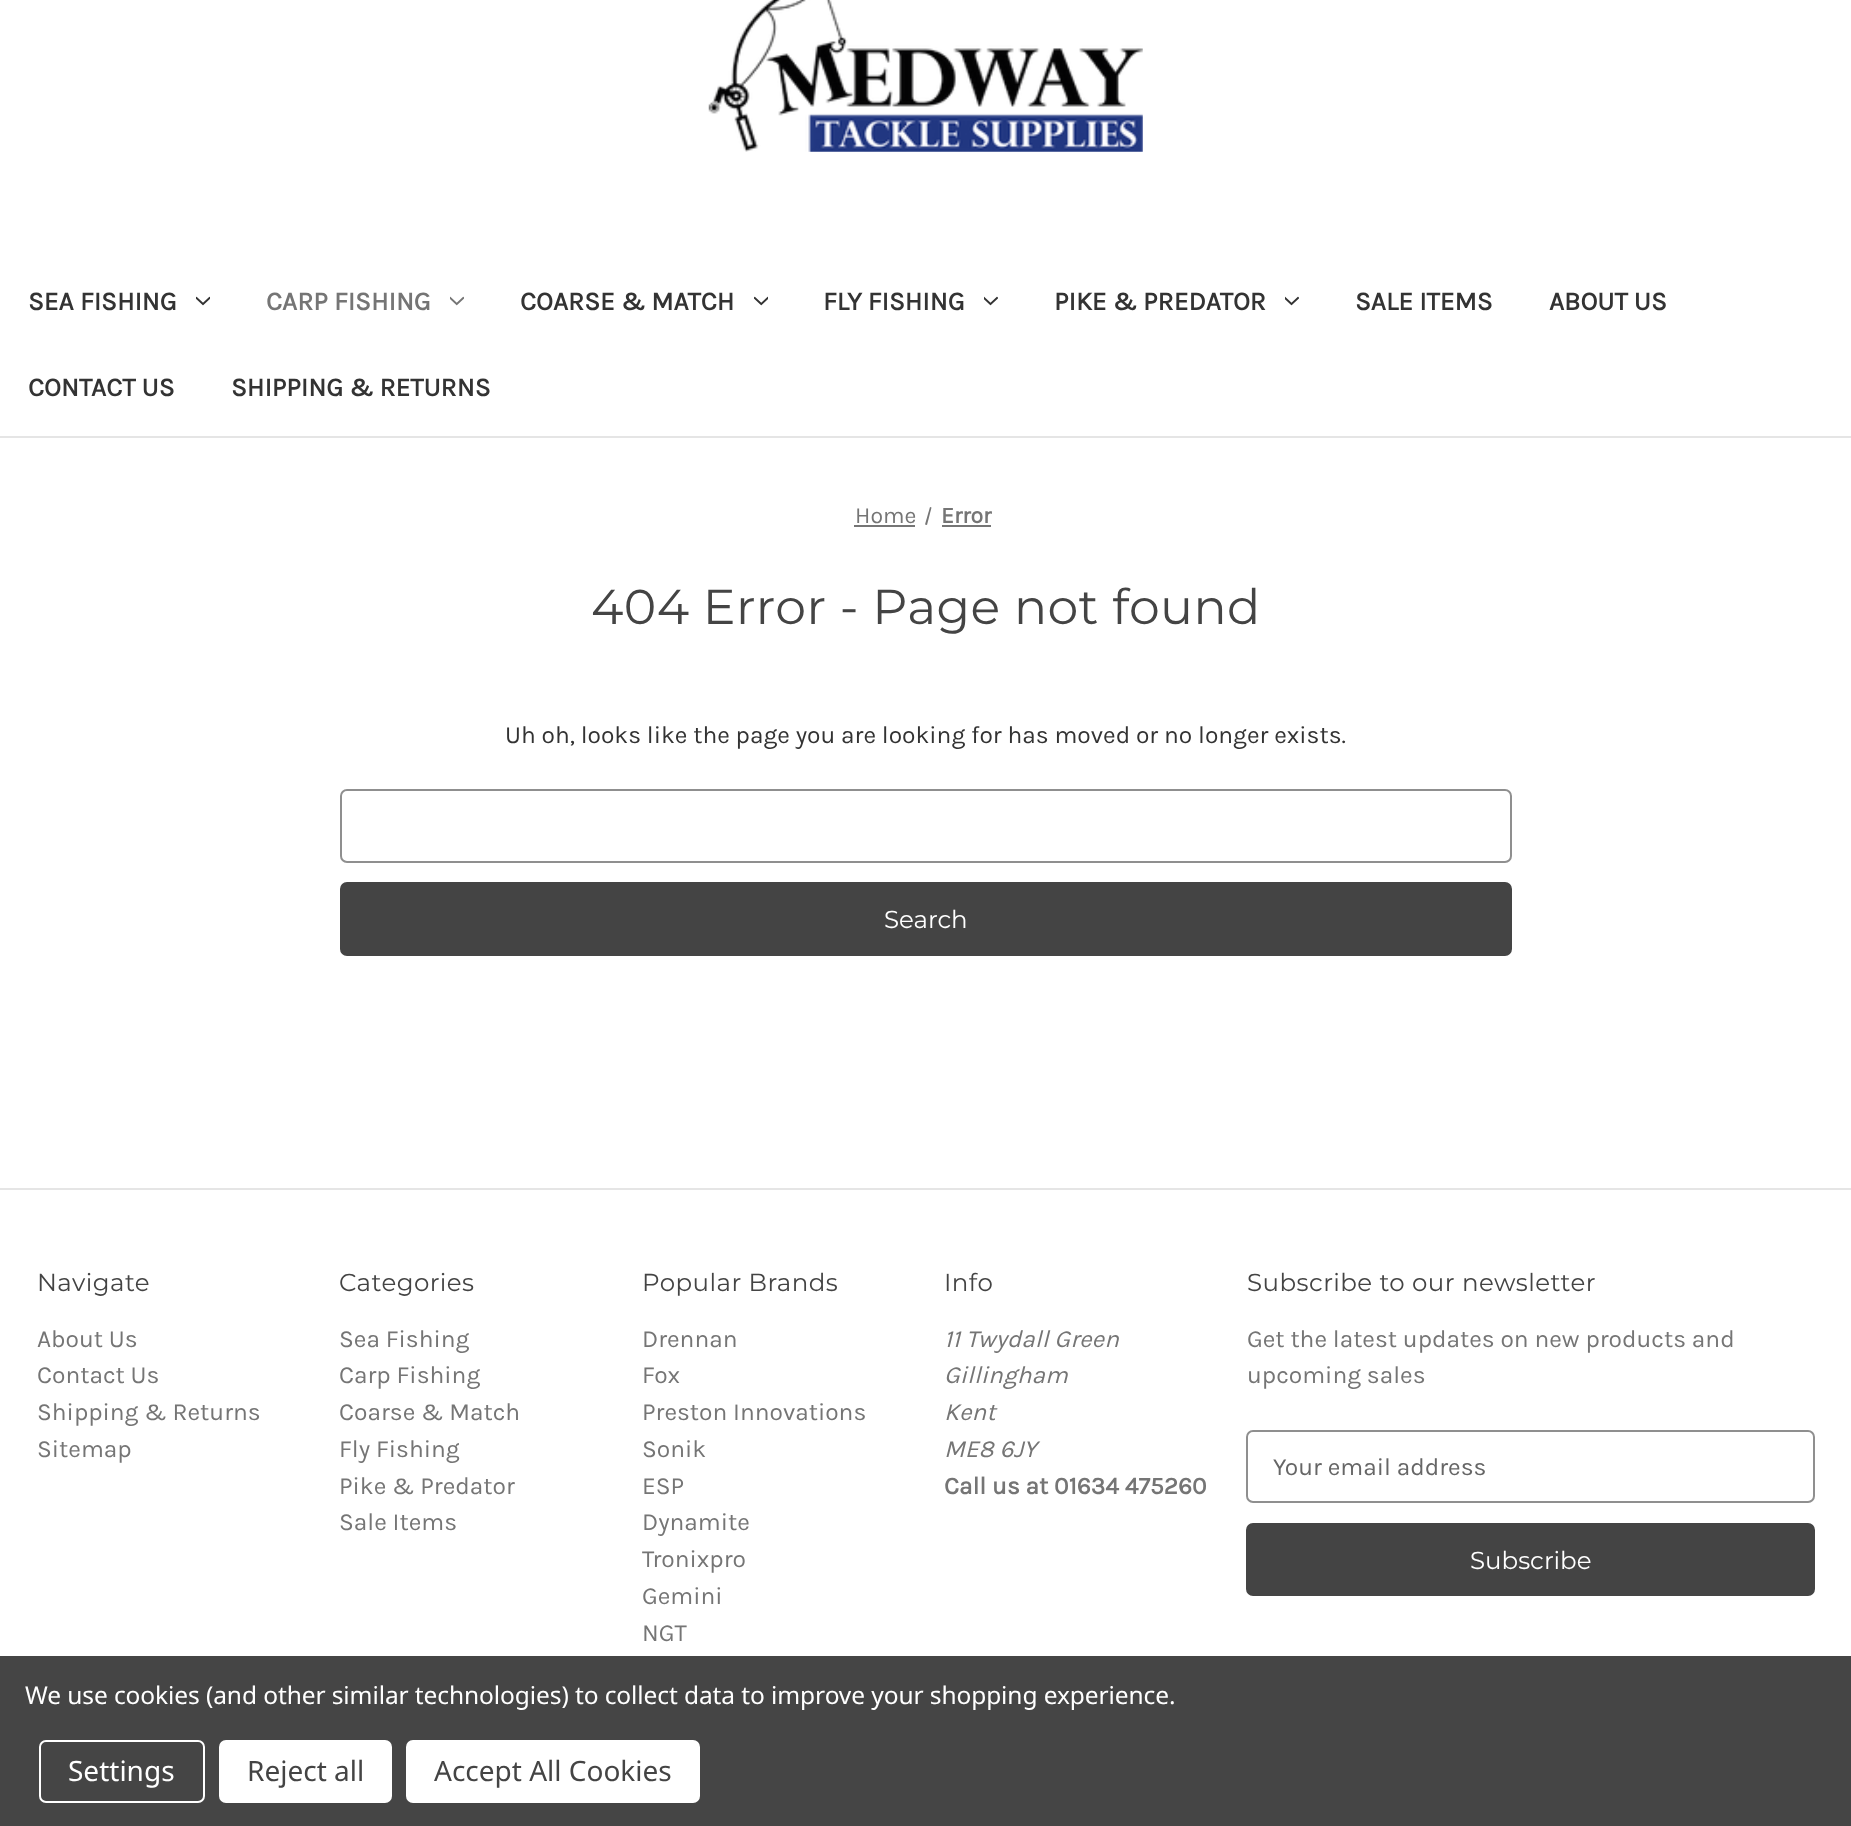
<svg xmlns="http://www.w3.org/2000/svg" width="1851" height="1826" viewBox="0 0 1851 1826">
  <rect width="100%" height="100%" fill="#fff"/>
  <path d="M0 436h1851v2H0z" fill="#e5e5e5"/>
  <image x="708" y="0" width="435" height="152" href="img/1.png"/>
  <image x="196" y="296" width="14" height="10" href="img/2.png"/>
  <image x="450" y="296" width="14" height="10" href="img/3.png"/>
  <image x="754" y="296" width="14" height="10" href="img/4.png"/>
  <image x="984" y="296" width="14" height="10" href="img/5.png"/>
  <image x="1285" y="296" width="14" height="10" href="img/5.png"/>
  <path d="M854 525h61v2H854z" fill="#757575"/>
  <path d="M930 507L931.5 507.5L927 525L925 524.5Z" fill="#757575"/>
  <path d="M942 525h49v2H942z" fill="#757575"/>
  <rect x="341" y="790" width="1170" height="72" rx="6" fill="none" stroke="#8f8f8f" stroke-width="2"/>
  <rect x="341" y="883" width="1170" height="72" rx="6" fill="#444" stroke="#444" stroke-width="2"/>
  <path d="M0 1188h1851v2H0z" fill="#e5e5e5"/>
  <rect x="1247" y="1431" width="567" height="71" rx="6" fill="none" stroke="#8f8f8f" stroke-width="2"/>
  <rect x="1247" y="1524" width="567" height="71" rx="6" fill="#444" stroke="#444" stroke-width="2"/>
  <path d="M0 1656h1851v170H0z" fill="#454545"/>
  <rect x="40" y="1741" width="164" height="61" rx="6" fill="none" stroke="#fff" stroke-width="2"/>
  <rect x="219" y="1740" width="173" height="63" rx="7" fill="#fff"/>
  <rect x="406" y="1740" width="294" height="63" rx="7" fill="#fff"/>
  <text x="28" y="310" font-family="Karla" font-size="26.25" font-weight="bold" fill="#333">SEA FISHING</text>
  <text x="266" y="310" font-family="Karla" font-size="26.25" font-weight="bold" fill="#757575">CARP FISHING</text>
  <g font-family="Karla" font-size="26.25" font-weight="bold" fill="#333">
    <text x="520" y="310">COARSE &amp; MATCH</text>
    <text x="823" y="310">FLY FISHING</text>
    <text x="1054" y="310">PIKE &amp; PREDATOR</text>
    <text x="1355" y="310">SALE ITEMS</text>
    <text x="1549" y="310">ABOUT US</text>
    <text x="28" y="396">CONTACT US</text>
    <text x="231" y="396">SHIPPING &amp; RETURNS</text>
  </g>
  <text x="855" y="523" font-family="Karla" font-size="23" fill="#757575">Home</text>
  <text x="941" y="523" font-family="Karla" font-size="23" font-weight="bold" fill="#757575">Error</text>
  <text x="591" y="624" font-family="Montserrat" font-size="49" letter-spacing="0.45" fill="#444">404 Error - Page not found</text>
  <text x="505" y="743" font-family="Karla" font-size="24.5" fill="#333">Uh oh, looks like the page you are looking for has moved or no longer exists.</text>
  <text x="884" y="928" font-family="Montserrat" font-size="24.5" fill="#fff">Search</text>
  <text x="37" y="1291" font-family="Montserrat" font-size="24.5" letter-spacing="0.45" fill="#444">Navigate</text>
  <g font-family="Karla" font-size="24.5" fill="#757575">
    <text x="37" y="1347">About Us</text>
    <text x="37" y="1383">Contact Us</text>
    <text x="37" y="1420">Shipping &amp; Returns</text>
    <text x="37" y="1457">Sitemap</text>
  </g>
  <text x="339" y="1291" font-family="Montserrat" font-size="24.5" letter-spacing="0.45" fill="#444">Categories</text>
  <g font-family="Karla" font-size="24.5" fill="#757575">
    <text x="339" y="1347">Sea Fishing</text>
    <text x="339" y="1383">Carp Fishing</text>
    <text x="339" y="1420">Coarse &amp; Match</text>
    <text x="339" y="1457">Fly Fishing</text>
    <text x="339" y="1494">Pike &amp; Predator</text>
    <text x="339" y="1530">Sale Items</text>
  </g>
  <text x="642" y="1291" font-family="Montserrat" font-size="24.5" letter-spacing="0.45" fill="#444">Popular Brands</text>
  <g font-family="Karla" font-size="24.5" fill="#757575">
    <text x="642" y="1347">Drennan</text>
    <text x="642" y="1383">Fox</text>
    <text x="642" y="1420">Preston Innovations</text>
    <text x="642" y="1457">Sonik</text>
    <text x="642" y="1494">ESP</text>
    <text x="642" y="1530">Dynamite</text>
    <text x="642" y="1567">Tronixpro</text>
    <text x="642" y="1604">Gemini</text>
    <text x="642" y="1641">NGT</text>
  </g>
  <text x="944" y="1291" font-family="Montserrat" font-size="24.5" letter-spacing="0.45" fill="#444">Info</text>
  <g font-family="Karla" font-size="24.5" font-style="italic" fill="#757575">
    <text x="944" y="1347">11 Twydall Green</text>
    <text x="944" y="1383">Gillingham</text>
    <text x="944" y="1420">Kent</text>
    <text x="944" y="1457">ME8 6JY</text>
  </g>
  <text x="944" y="1494" font-family="Karla" font-size="24.5" font-weight="bold" fill="#757575">Call us at 01634 475260</text>
  <text x="1247" y="1291" font-family="Montserrat" font-size="24.5" letter-spacing="0.45" fill="#444">Subscribe to our newsletter</text>
  <g font-family="Karla" font-size="24.5" fill="#757575">
    <text x="1247" y="1347">Get the latest updates on new products and</text>
    <text x="1247" y="1383">upcoming sales</text>
  </g>
  <text x="1273" y="1475" font-family="Karla" font-size="24.5" fill="#666">Your email address</text>
  <text x="1470" y="1569" font-family="Montserrat" font-size="24.5" fill="#fff">Subscribe</text>
  <text x="25" y="1704" font-family="Noto Sans" font-size="24.5" letter-spacing="-0.09" fill="#fff">We use cookies (and other similar technologies) to collect data to improve your shopping experience.</text>
  <text x="68" y="1781" font-family="Noto Sans" font-size="28" fill="#fff">Settings</text>
  <g font-family="Noto Sans" font-size="28" fill="#444">
    <text x="247" y="1781">Reject all</text>
    <text x="434" y="1781">Accept All Cookies</text>
  </g>
</svg>
